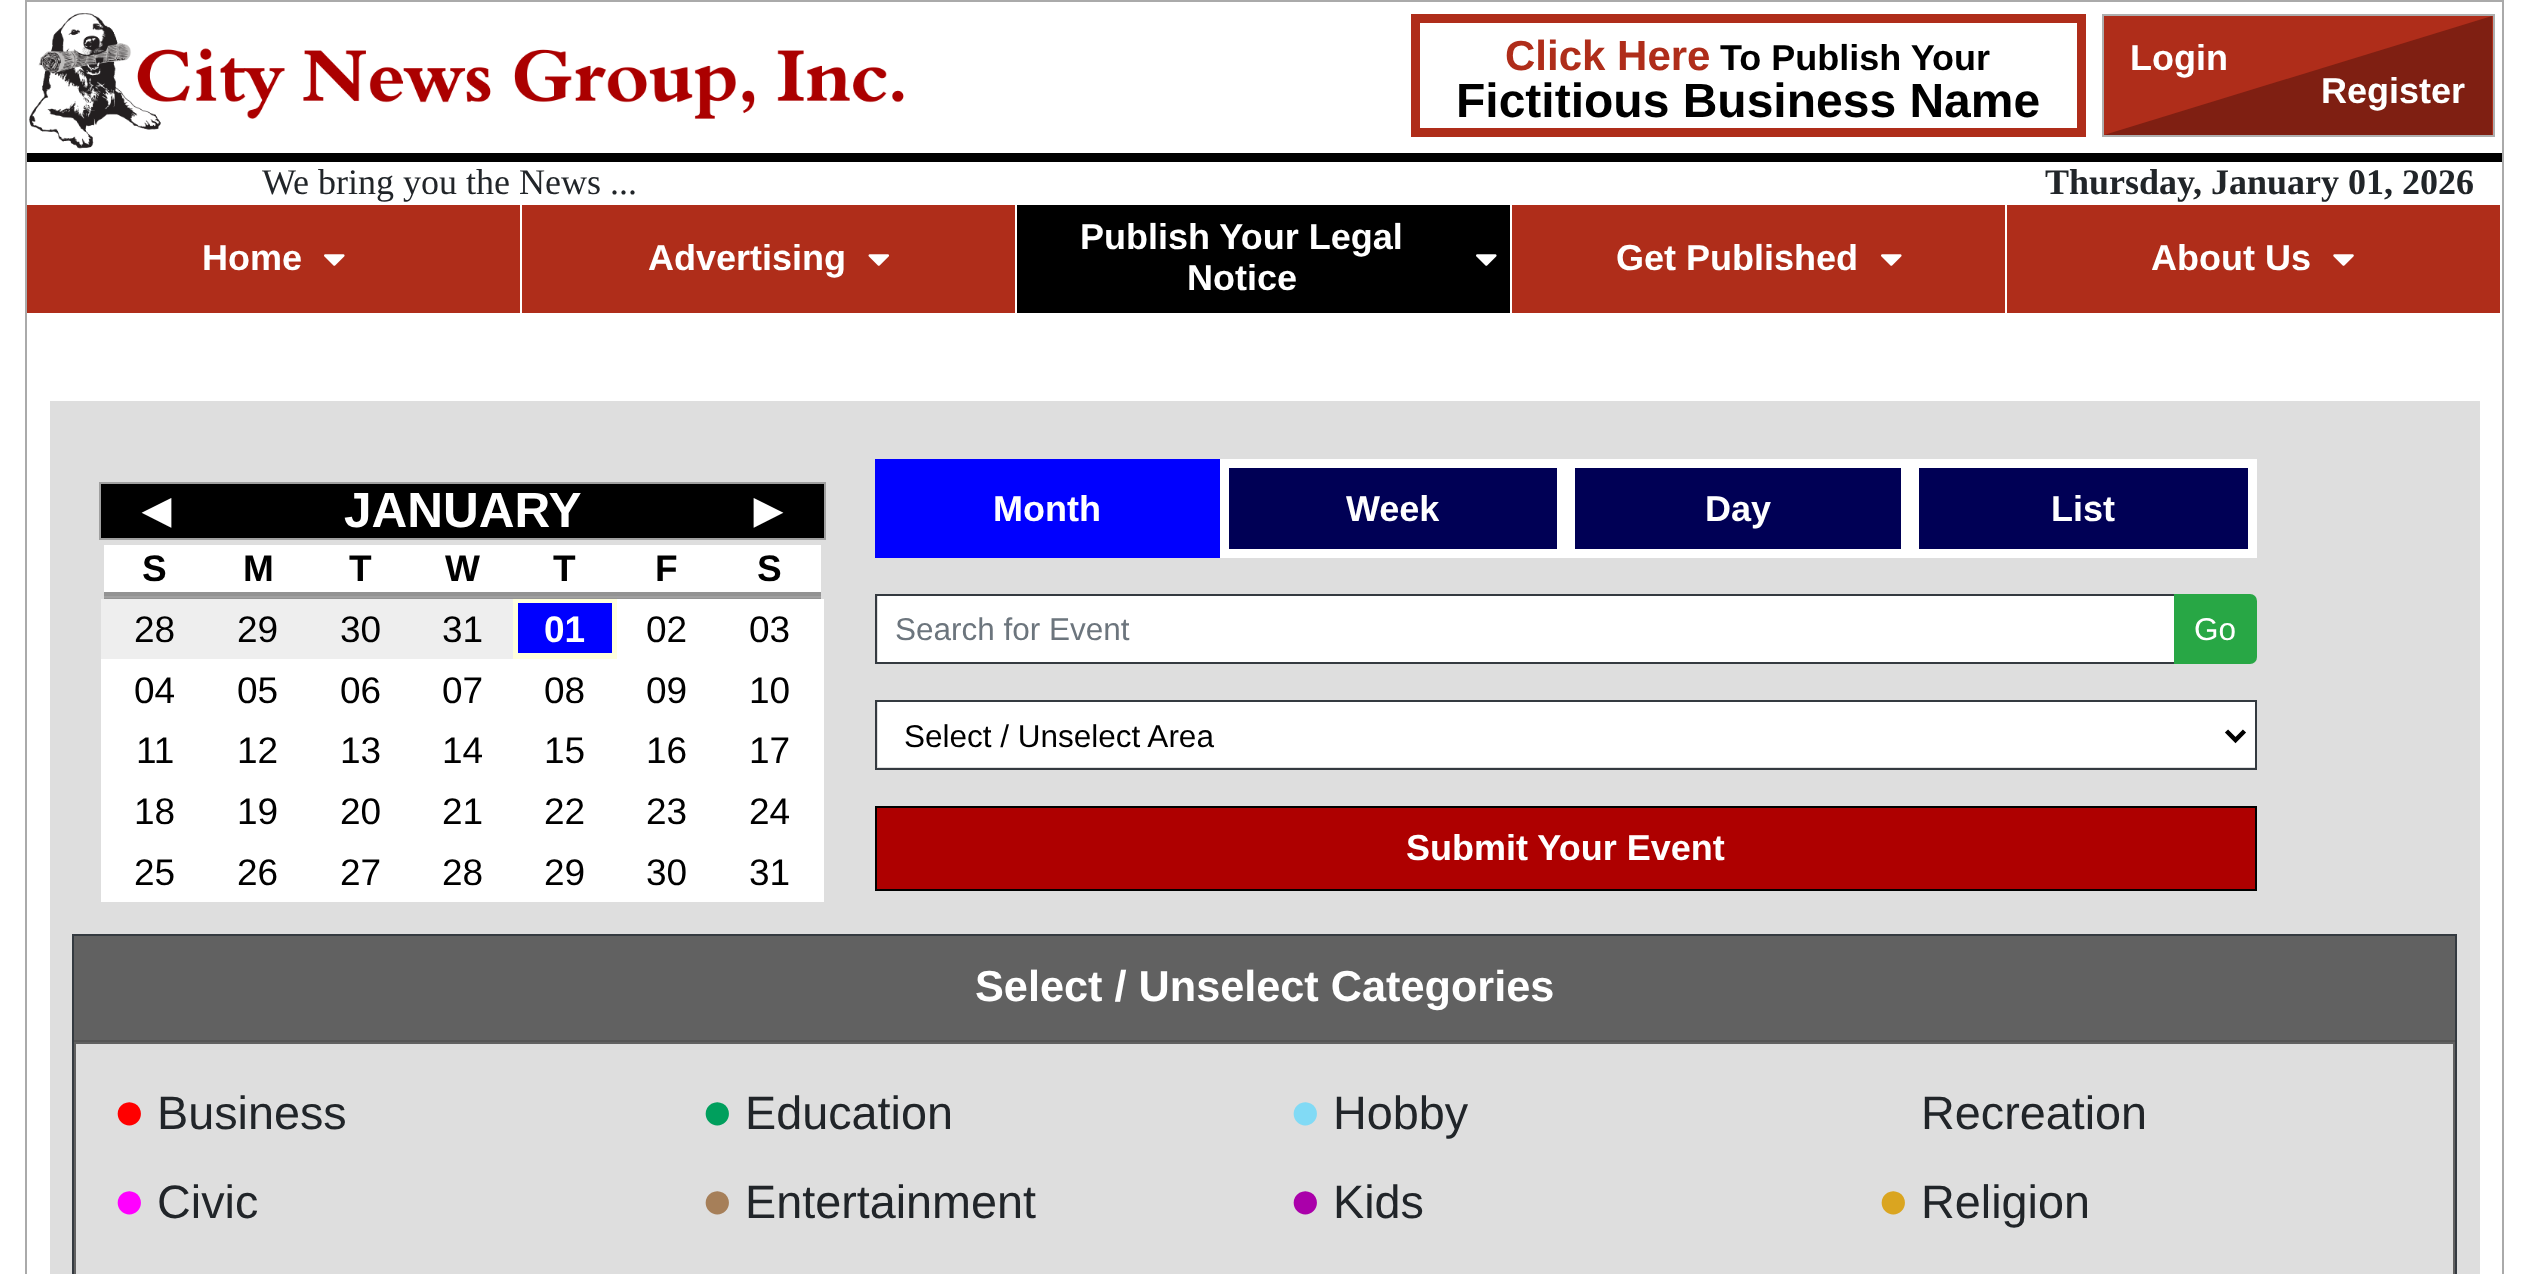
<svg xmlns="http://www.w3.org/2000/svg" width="2528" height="1274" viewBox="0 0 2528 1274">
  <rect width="100%" height="100%" fill="#fff"/>
  <path d="M26 1h2477v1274H26z" fill="none" stroke="#aaa" stroke-width="2"/>
  <image x="29" y="13" width="875" height="136" href="img/1.png"/>
  <path d="M1415.5 18.5h666v114H1415.5z" fill="none" stroke="#af2d1a" stroke-width="9"/>
  <path d="M2103 15h391v121H2103z" fill="#af2d1a" stroke="#aeaeae" stroke-width="2"/>
  <path d="M2104 135L2492 16V135Z" fill="#7f1f12"/>
  <path d="M27 153h2475v9H27z" fill="#000"/>
  <path d="M27 205h2473v108H27z" fill="#af2d1a"/>
  <path d="M520 205h2v108H520z" fill="#fff"/>
  <image x="324" y="254" width="21" height="12" href="img/2.png"/>
  <path d="M1015 205h2v108H1015z" fill="#fff"/>
  <image x="868" y="254" width="22" height="12" href="img/3.png"/>
  <path d="M1017 205h493v108H1017z" fill="#000"/>
  <path d="M1510 205h2v108H1510z" fill="#fff"/>
  <image x="1476" y="254" width="21" height="12" href="img/4.png"/>
  <path d="M2005 205h2v108H2005z" fill="#fff"/>
  <image x="1881" y="254" width="21" height="12" href="img/2.png"/>
  <image x="2333" y="254" width="21" height="12" href="img/5.png"/>
  <path d="M50 401h2430v873H50z" fill="#dedede"/>
  <path d="M101 484h723v54H101z" fill="#000"/>
  <path d="M99 482h727v2H99z" fill="#a0a0a0"/>
  <path d="M824 482h2v58H824z" fill="#a0a0a0"/>
  <path d="M99 538h727v2H99z" fill="#a0a0a0"/>
  <path d="M99 482h2v58H99z" fill="#a0a0a0"/>
  <path d="M101 592h723v7H101z" fill="#939393"/>
  <path d="M99 596h727v2H99z" fill="#a0a0a0"/>
  <path d="M821 592h5v7H821z" fill="#dedede"/>
  <path d="M99 592h5v7H99z" fill="#dedede"/>
  <path d="M104 545h717v47H104z" fill="#fff"/>
  <path d="M101 599h412v60H101z" fill="#eee"/>
  <path d="M513 599h104v60H513z" fill="#ffd"/>
  <path d="M518 603h94v50H518z" fill="#00f"/>
  <path d="M617 599h207v60H617z" fill="#fff"/>
  <path d="M101 659h723v61H101z" fill="#fff"/>
  <path d="M101 720h723v61H101z" fill="#fff"/>
  <path d="M101 781h723v61H101z" fill="#fff"/>
  <path d="M101 842h723v60H101z" fill="#fff"/>
  <path d="M875 459h345v99H875z" fill="#00f"/>
  <path d="M1224.5 463.5h337v90H1224.5z" fill="#005" stroke="#fff" stroke-width="9"/>
  <path d="M1570.5 463.5h335v90H1570.5z" fill="#005" stroke="#fff" stroke-width="9"/>
  <path d="M1914.5 463.5h338v90H1914.5z" fill="#005" stroke="#fff" stroke-width="9"/>
  <path d="M878 596h1296v66H878z" fill="#fff"/>
  <path d="M876 595h1299v68H876z" fill="none" stroke="#343a40" stroke-width="2"/>
  <path d="M2175 595H2250C2253.5 595 2256 597.5 2256 601V657C2256 660.5 2253.5 663 2250 663H2175Z" fill="#28a745" stroke="#28a745" stroke-width="2"/>
  <path d="M878 702h1377v65H878z" fill="#fff"/>
  <path d="M876 701h1380v68H876z" fill="none" stroke="#343a40" stroke-width="2"/>
  <path d="M2226.5 731L2235.5 740L2244.5 731" fill="none" stroke="#000" stroke-width="4.5"/>
  <path d="M876 807h1380v83H876z" fill="#ae0000" stroke="#000" stroke-width="2"/>
  <path d="M73 935h2383v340H73z" fill="none" stroke="#343a40" stroke-width="2"/>
  <path d="M74 936h2381v104H74z" fill="#616161"/>
  <path d="M74 1040h2381v2H74z" fill="#555"/>
  <path d="M75 1043h2379v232H75z" fill="none" stroke="#616161" stroke-width="2"/>
  <text x="1505" y="70" font-family="Liberation Sans" font-size="42" font-weight="bold" fill="#af2d1a">Click Here</text>
  <text x="1720" y="70" font-family="Liberation Sans" font-size="36" font-weight="bold" fill="#000">To Publish Your</text>
  <text x="1456" y="117" font-family="Liberation Sans" font-size="48" font-weight="bold" fill="#000">Fictitious Business Name</text>
  <g font-family="Liberation Sans" font-size="36" font-weight="bold" fill="#fff">
    <text x="2130" y="70">Login</text>
    <text x="2321" y="103">Register</text>
  </g>
  <text x="262" y="194" font-family="Liberation Serif" font-size="36" fill="#212529">We bring you the News ...</text>
  <text x="2045" y="194" font-family="Liberation Serif" font-size="36" font-weight="bold" fill="#212529">Thursday, January 01, 2026</text>
  <g font-family="Liberation Sans" font-size="36" font-weight="bold" fill="#fff">
    <text x="202" y="270">Home</text>
    <text x="648" y="270">Advertising</text>
    <text x="1080" y="249">Publish Your Legal</text>
    <text x="1187" y="290">Notice</text>
    <text x="1616" y="270">Get Published</text>
    <text x="2151" y="270">About Us</text>
  </g>
  <g font-family="Liberation Sans" font-size="49.5" font-weight="bold" fill="#fff">
    <text x="132" y="527">◄</text>
    <text x="344" y="527">JANUARY</text>
    <text x="744" y="527">►</text>
  </g>
  <g font-family="Liberation Sans" font-size="37" font-weight="bold" fill="#000">
    <text x="142" y="581">S</text>
    <text x="243" y="581">M</text>
    <text x="349" y="581">T</text>
    <text x="445" y="581">W</text>
    <text x="553" y="581">T</text>
    <text x="655" y="581">F</text>
    <text x="757" y="581">S</text>
  </g>
  <g font-family="Liberation Sans" font-size="37" fill="#000">
    <text x="134" y="642">28</text>
    <text x="237" y="642">29</text>
    <text x="340" y="642">30</text>
    <text x="442" y="642">31</text>
  </g>
  <text x="544" y="642" font-family="Liberation Sans" font-size="37" font-weight="bold" fill="#fff">01</text>
  <g font-family="Liberation Sans" font-size="37" fill="#000">
    <text x="646" y="642">02</text>
    <text x="749" y="642">03</text>
    <text x="134" y="703">04</text>
    <text x="237" y="703">05</text>
    <text x="340" y="703">06</text>
    <text x="442" y="703">07</text>
    <text x="544" y="703">08</text>
    <text x="646" y="703">09</text>
    <text x="749" y="703">10</text>
    <text x="136" y="763">11</text>
    <text x="237" y="763">12</text>
    <text x="340" y="763">13</text>
    <text x="442" y="763">14</text>
    <text x="544" y="763">15</text>
    <text x="646" y="763">16</text>
    <text x="749" y="763">17</text>
    <text x="134" y="824">18</text>
    <text x="237" y="824">19</text>
    <text x="340" y="824">20</text>
    <text x="442" y="824">21</text>
    <text x="544" y="824">22</text>
    <text x="646" y="824">23</text>
    <text x="749" y="824">24</text>
    <text x="134" y="885">25</text>
    <text x="237" y="885">26</text>
    <text x="340" y="885">27</text>
    <text x="442" y="885">28</text>
    <text x="544" y="885">29</text>
    <text x="646" y="885">30</text>
    <text x="749" y="885">31</text>
  </g>
  <g font-family="Liberation Sans" font-size="36" font-weight="bold" fill="#fff">
    <text x="993" y="521">Month</text>
    <text x="1346" y="521">Week</text>
    <text x="1705" y="521">Day</text>
    <text x="2051" y="521">List</text>
  </g>
  <text x="895" y="640" font-family="Liberation Sans" font-size="31.5" fill="#6c757d">Search for Event</text>
  <text x="2194" y="640" font-family="Liberation Sans" font-size="31.5" fill="#fff">Go</text>
  <text x="904" y="747" font-family="Liberation Sans" font-size="31.5" fill="#000">Select / Unselect Area</text>
  <text x="1406" y="860" font-family="Liberation Sans" font-size="36" font-weight="bold" fill="#fff">Submit Your Event</text>
  <text x="975" y="1001" font-family="Liberation Sans" font-size="43.25" font-weight="bold" fill="#fff">Select / Unselect Categories</text>
  <text x="113" y="1129" font-family="Liberation Sans" font-size="54" font-weight="bold" fill="#f00">●</text>
  <text x="157" y="1129" font-family="Liberation Sans" font-size="46.75" fill="#212529">Business</text>
  <text x="113" y="1218" font-family="Liberation Sans" font-size="54" font-weight="bold" fill="#f0f">●</text>
  <text x="157" y="1218" font-family="Liberation Sans" font-size="46.75" fill="#212529">Civic</text>
  <text x="701" y="1129" font-family="Liberation Sans" font-size="54" font-weight="bold" fill="#009f5d">●</text>
  <text x="745" y="1129" font-family="Liberation Sans" font-size="46.75" fill="#212529">Education</text>
  <text x="701" y="1218" font-family="Liberation Sans" font-size="54" font-weight="bold" fill="#a67f59">●</text>
  <text x="745" y="1218" font-family="Liberation Sans" font-size="46.75" fill="#212529">Entertainment</text>
  <text x="1289" y="1129" font-family="Liberation Sans" font-size="54" font-weight="bold" fill="#81daf5">●</text>
  <text x="1333" y="1129" font-family="Liberation Sans" font-size="46.75" fill="#212529">Hobby</text>
  <text x="1289" y="1218" font-family="Liberation Sans" font-size="54" font-weight="bold" fill="#a0a">●</text>
  <g font-family="Liberation Sans" font-size="46.75" fill="#212529">
    <text x="1333" y="1218">Kids</text>
    <text x="1921" y="1129">Recreation</text>
  </g>
  <text x="1877" y="1218" font-family="Liberation Sans" font-size="54" font-weight="bold" fill="#daa520">●</text>
  <text x="1921" y="1218" font-family="Liberation Sans" font-size="46.75" fill="#212529">Religion</text>
</svg>
